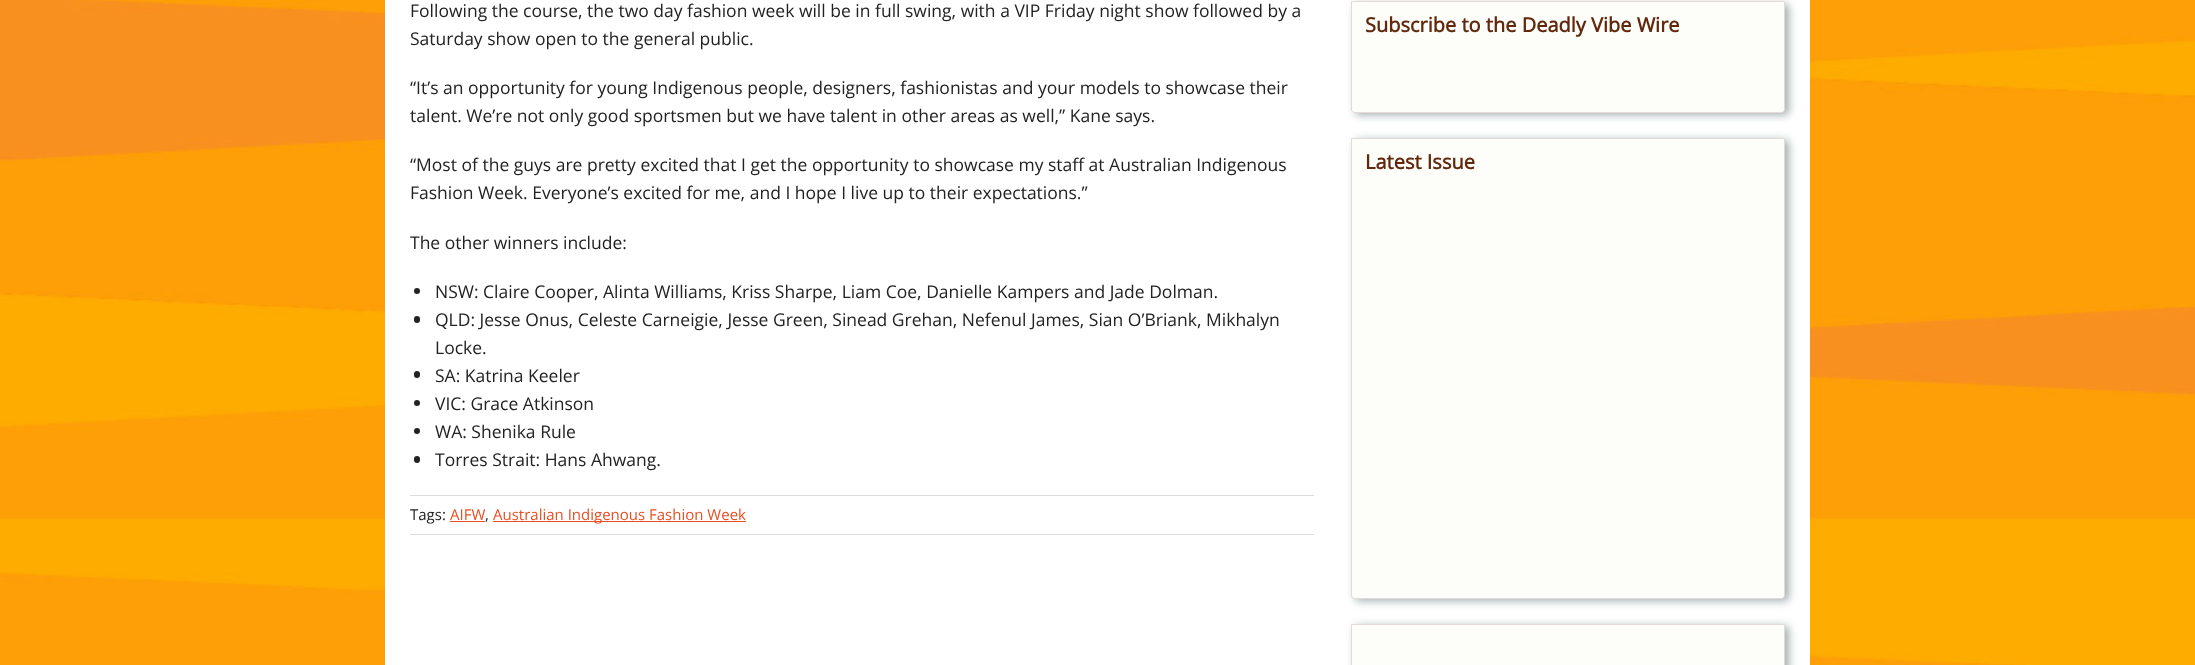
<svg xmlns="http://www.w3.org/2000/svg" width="2195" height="665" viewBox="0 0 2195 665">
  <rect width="100%" height="100%" fill="#fff"/>
  <image x="0" y="0" width="2195" height="665" href="img/1.png"/>
  <path d="M385 0h1425v665H385z" fill="#fff"/>
  <circle cx="417" cy="291" r="3" fill="#222"/>
  <rect x="414" y="316" width="6" height="7" rx="3" fill="#222"/>
  <rect x="414" y="371" width="6" height="7" rx="3" fill="#222"/>
  <circle cx="417" cy="403" r="3" fill="#222"/>
  <circle cx="417" cy="431" r="3" fill="#222"/>
  <rect x="414" y="456" width="6" height="7" rx="3" fill="#222"/>
  <path d="M410 495h904v1H410z" fill="#ddd"/>
  <path d="M450 521h35v1H450z" fill="#e84f22"/>
  <path d="M493 521h253v1H493z" fill="#e84f22"/>
  <path d="M410 534h904v1H410z" fill="#ddd"/>
  <rect x="1355" y="4" width="434" height="111" rx="4" fill="#13343b66" filter="blur(4px)"/>
  <path d="M1351.5 1.5H1784.5V109C1784.5 111 1783 112.5 1781 112.5H1355C1353 112.5 1351.5 111 1351.5 109Z" fill="#fdfdf9" stroke="#e4dad6"/>
  <rect x="1355" y="140" width="434" height="461" rx="4" fill="#13343b66" filter="blur(4px)"/>
  <path d="M1351.5 138.5H1784.5V595C1784.5 597 1783 598.5 1781 598.5H1355C1353 598.5 1351.5 597 1351.5 595Z" fill="#fdfdf9" stroke="#e4dad6"/>
  <rect x="1355" y="626" width="434" height="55" rx="4" fill="#13343b66" filter="blur(4px)"/>
  <path d="M1351.5 624.5h433v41H1351.5z" fill="#fdfdf9" stroke="#e4dad6"/>
  <g font-family="Open Sans" font-size="17.5" fill="#222">
    <text x="410" y="17">Following the course, the two day fashion week will be in full swing, with a VIP Friday night show followed by a</text>
    <text x="410" y="45">Saturday show open to the general public.</text>
    <text x="410" y="94">“It’s an opportunity for young Indigenous people, designers, fashionistas and your models to showcase their</text>
    <text x="410" y="122">talent. We’re not only good sportsmen but we have talent in other areas as well,” Kane says.</text>
    <text x="410" y="171">“Most of the guys are pretty excited that I get the opportunity to showcase my staff at Australian Indigenous</text>
    <text x="410" y="199">Fashion Week. Everyone’s excited for me, and I hope I live up to their expectations.”</text>
    <text x="410" y="249">The other winners include:</text>
    <text x="435" y="298">NSW: Claire Cooper, Alinta Williams, Kriss Sharpe, Liam Coe, Danielle Kampers and Jade Dolman.</text>
    <text x="435" y="326">QLD: Jesse Onus, Celeste Carneigie, Jesse Green, Sinead Grehan, Nefenul James, Sian O’Briank, Mikhalyn</text>
    <text x="435" y="354">Locke.</text>
    <text x="435" y="382">SA: Katrina Keeler</text>
    <text x="435" y="410">VIC: Grace Atkinson</text>
    <text x="435" y="438">WA: Shenika Rule</text>
    <text x="435" y="466">Torres Strait: Hans Ahwang.</text>
  </g>
  <text x="410" y="520" font-family="Open Sans" font-size="15" fill="#222">Tags:</text>
  <text x="450" y="520" font-family="Open Sans" font-size="15" fill="#e84f22">AIFW</text>
  <text x="485" y="520" font-family="Open Sans" font-size="15" fill="#222">,</text>
  <text x="493" y="520" font-family="Open Sans" font-size="15" fill="#e84f22">Australian Indigenous Fashion Week</text>
  <g font-family="Open Sans" font-size="20" font-weight="bold" fill="#61280e">
    <text x="1365" y="32">Subscribe to the Deadly Vibe Wire</text>
    <text x="1365" y="169">Latest Issue</text>
  </g>
</svg>
